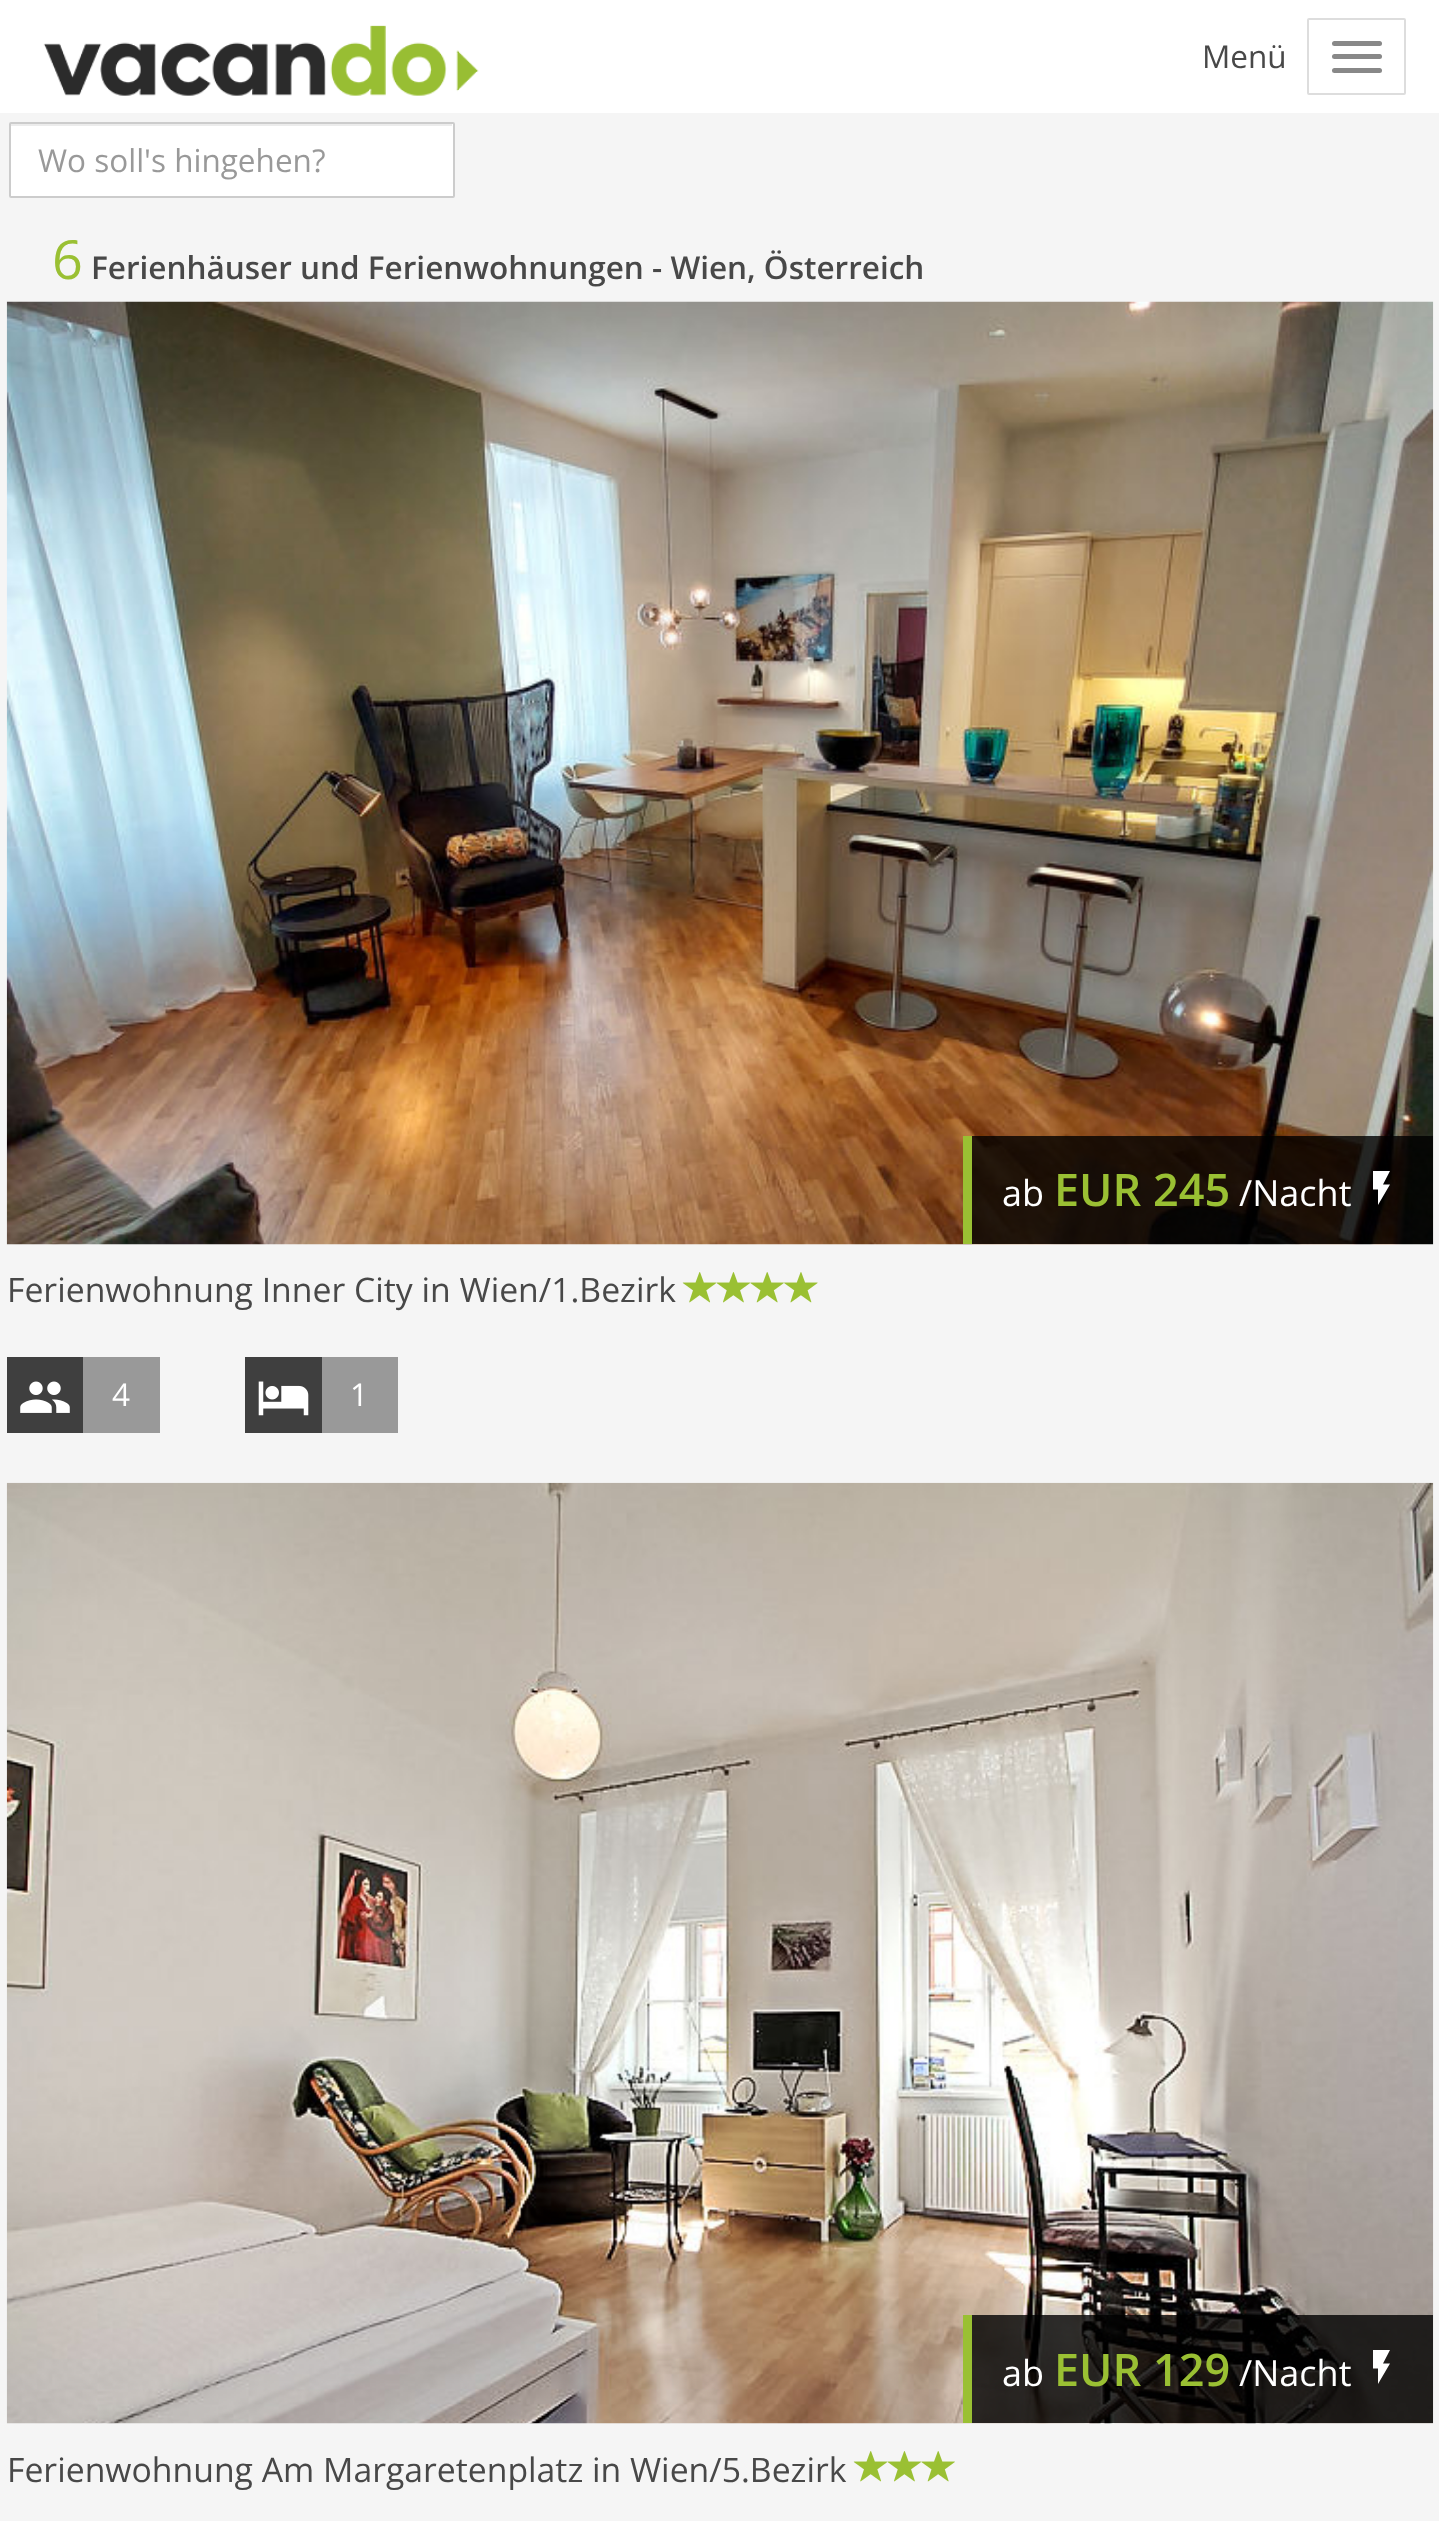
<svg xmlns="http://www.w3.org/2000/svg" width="1439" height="2521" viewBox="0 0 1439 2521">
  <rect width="100%" height="100%" fill="#f5f5f5"/>
  <path d="M0 0h1439v113H0z" fill="#fff"/>
  <image x="43" y="25" width="436" height="71" href="img/1.png"/>
  <rect x="1308" y="19" width="97" height="75" rx="1" fill="none" stroke="#ddd" stroke-width="2"/>
  <rect x="1332" y="41" width="50" height="5" rx="2.5" fill="#888"/>
  <rect x="1332" y="54" width="50" height="5" rx="2.5" fill="#888"/>
  <rect x="1332" y="68" width="50" height="5" rx="2.5" fill="#888"/>
  <rect x="9" y="122" width="446" height="76" rx="2" fill="#fff"/>
  <path d="M11 124h441v2H11z" fill="#ececec"/>
  <rect x="10" y="123" width="444" height="74" rx="1" fill="none" stroke="#ccc" stroke-width="2"/>
  <image x="6" y="301" width="1428" height="944" href="img/2.png"/>
  <path d="M972 1136h461v108H972z" fill="#000000cc"/>
  <path d="M963 1136h9v108H963z" fill="#9ac033"/>
  <path d="M1373 1171H1390L1383 1184.5H1390L1378 1205V1189.5H1373Z" fill="#fff"/>
  <image x="682" y="1272" width="35" height="31" href="img/3.png"/>
  <image x="716" y="1272" width="34" height="31" href="img/4.png"/>
  <image x="750" y="1272" width="34" height="31" href="img/5.png"/>
  <image x="784" y="1272" width="34" height="31" href="img/6.png"/>
  <path d="M7 1357h76v76H7z" fill="#3f3f3f"/>
  <image x="20" y="1381" width="50" height="32" href="img/7.png"/>
  <path d="M83 1357h77v76H83z" fill="#999"/>
  <path d="M245 1357h77v76H245z" fill="#3f3f3f"/>
  <image x="258" y="1381" width="51" height="35" href="img/8.png"/>
  <path d="M322 1357h76v76H322z" fill="#999"/>
  <image x="6" y="1482" width="1428" height="942" href="img/9.png"/>
  <path d="M972 2315h461v108H972z" fill="#000000cc"/>
  <path d="M963 2315h9v108H963z" fill="#9ac033"/>
  <path d="M1373 2350H1390L1383 2363.5H1390L1378 2384V2368.5H1373Z" fill="#fff"/>
  <image x="853" y="2451" width="35" height="31" href="img/3.png"/>
  <image x="887" y="2451" width="34" height="31" href="img/4.png"/>
  <image x="921" y="2451" width="34" height="31" href="img/5.png"/>
  <text x="1202" y="68" font-family="Open Sans" font-size="31.5" fill="#484848">Menü</text>
  <text x="38" y="172" font-family="Open Sans" font-size="31.5" fill="#999">Wo soll's hingehen?</text>
  <text x="52" y="279" font-family="Open Sans" font-size="54" fill="#9ac033">6</text>
  <text x="91" y="279" font-family="Open Sans" font-size="31.5" font-weight="600" fill="#484848">Ferienhäuser und Ferienwohnungen - Wien, Österreich</text>
  <text x="1002" y="1206" font-family="Open Sans" font-size="36" fill="#fff">ab</text>
  <text x="1054" y="1206" font-family="Open Sans" font-size="45" font-weight="600" fill="#9ac033">EUR 245</text>
  <text x="1239" y="1206" font-family="Open Sans" font-size="36" fill="#fff">/Nacht</text>
  <text x="7" y="1302" font-family="Open Sans" font-size="33.75" fill="#484848">Ferienwohnung Inner City in Wien/1.Bezirk</text>
  <g font-family="Open Sans" font-size="31.5" fill="#fff">
    <text x="112" y="1406">4</text>
    <text x="350" y="1406">1</text>
  </g>
  <text x="1002" y="2386" font-family="Open Sans" font-size="36" fill="#fff">ab</text>
  <text x="1054" y="2386" font-family="Open Sans" font-size="45" font-weight="600" fill="#9ac033">EUR 129</text>
  <text x="1239" y="2386" font-family="Open Sans" font-size="36" fill="#fff">/Nacht</text>
  <text x="7" y="2482" font-family="Open Sans" font-size="33.75" fill="#484848">Ferienwohnung Am Margaretenplatz in Wien/5.Bezirk</text>
</svg>
